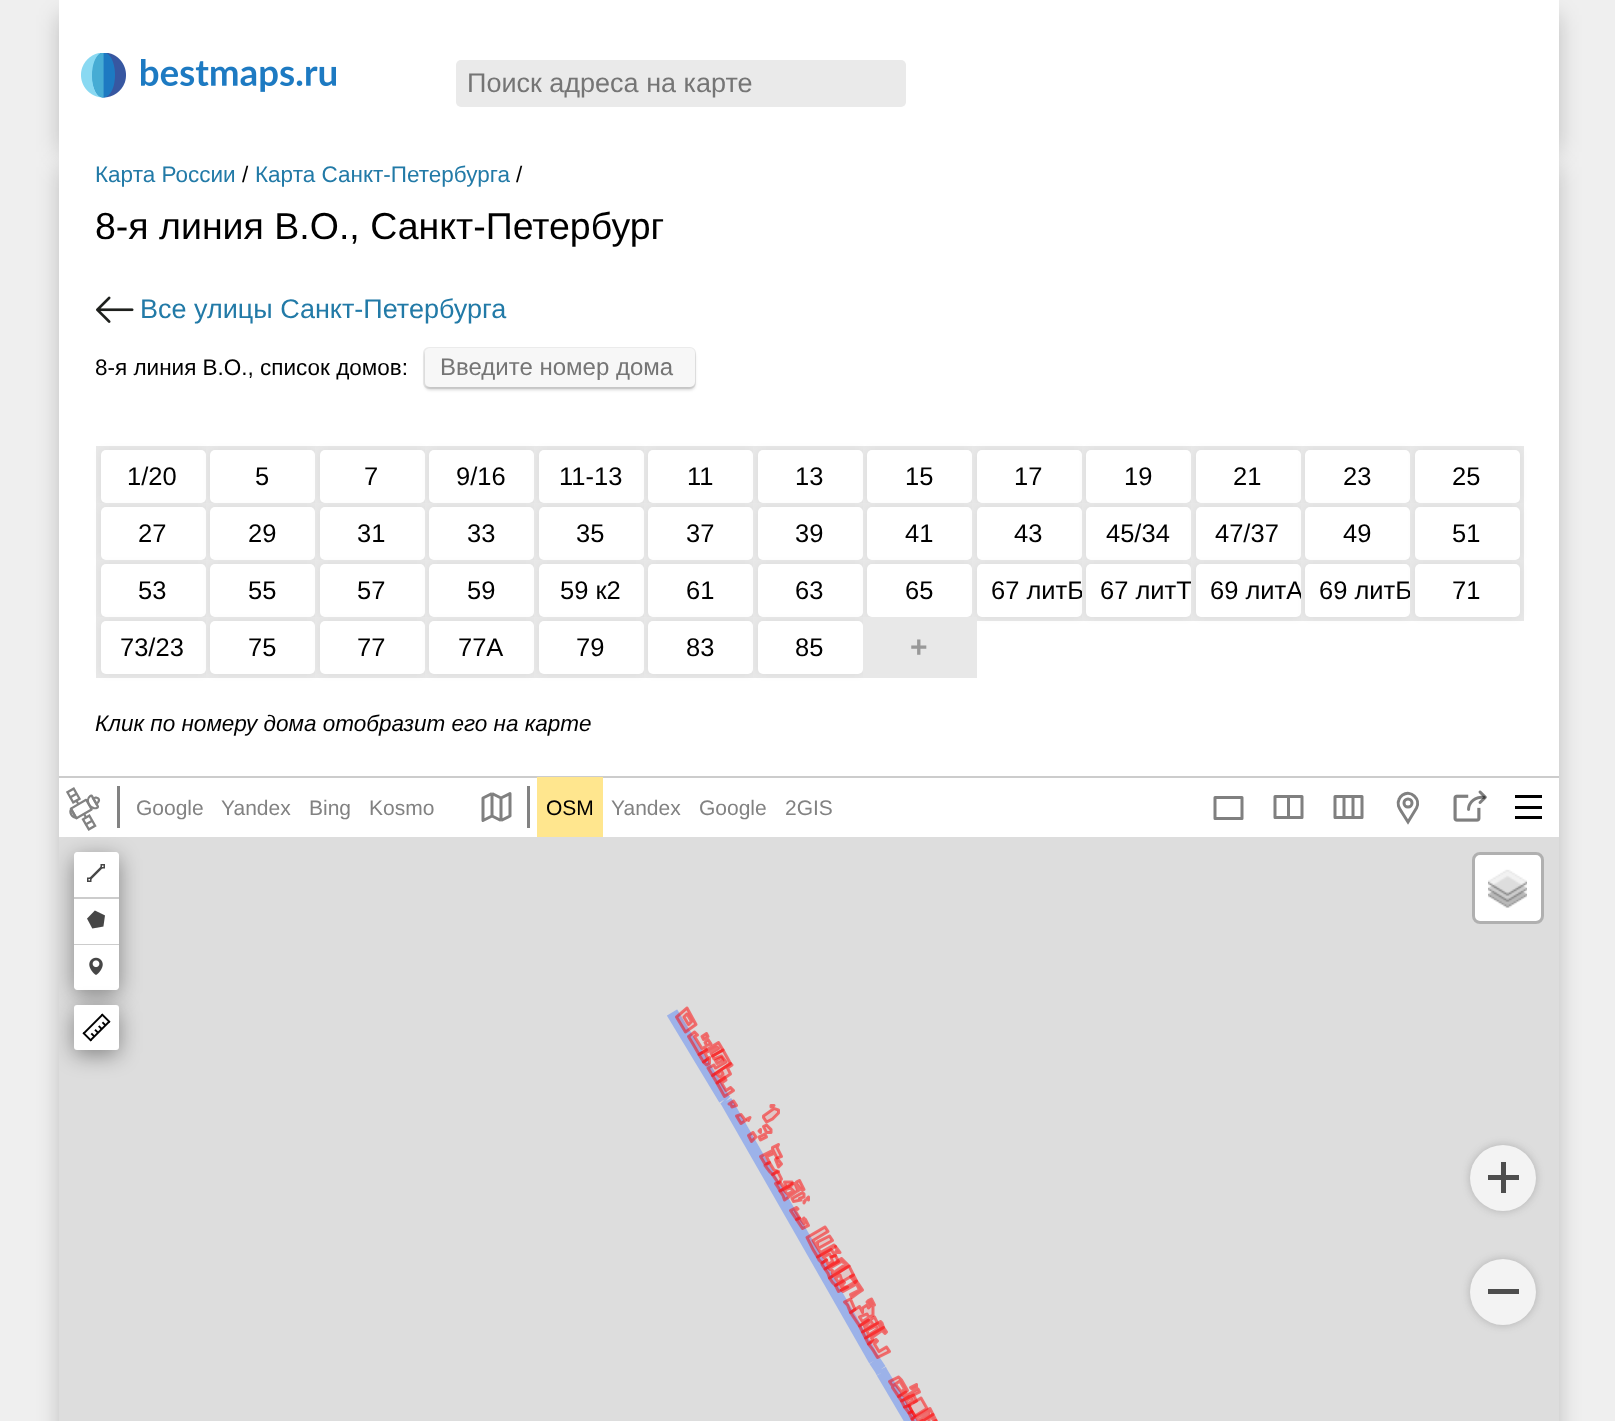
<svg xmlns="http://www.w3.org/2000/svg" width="1615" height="1421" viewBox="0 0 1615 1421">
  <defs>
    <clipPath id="clip1"><path d="M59 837h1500v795H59z"/></clipPath>
  </defs>
  <rect width="100%" height="100%" fill="#efefef"/>
  <path d="M59 15h1500v137H59z" fill="#00000033" filter="blur(11px)"/>
  <path d="M59 0h1500v137H59z" fill="#fff"/>
  <image x="81" y="53" width="45" height="45" href="img/1.png"/>
  <image x="141" y="59" width="195" height="33" href="img/2.png"/>
  <rect x="456" y="60" width="450" height="47" rx="5" fill="#eaeaea"/>
  <path d="M59 167h1500v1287H59z" fill="#00000033" filter="blur(11px)"/>
  <path d="M59 137h1500v700H59z" fill="#fff"/>
  <image x="96" y="296" width="38" height="27" href="img/3.png"/>
  <rect x="424" y="348" width="271" height="40" rx="5" fill="none" stroke="#ebebeb" stroke-width="2"/>
  <rect x="425" y="351" width="270" height="39" rx="5" fill="#00000029" filter="blur(1.5px)"/>
  <rect x="425" y="348" width="270" height="39" rx="5" fill="#f7f7f7"/>
  <path d="M96 446h110v57H96z" fill="#e8e8e8"/>
  <rect x="101" y="450" width="105" height="53" rx="5" fill="#0000000d" filter="blur(4px)"/>
  <rect x="101" y="450" width="105" height="53" rx="5" fill="#fff"/>
  <path d="M206 446h109v57H206z" fill="#e8e8e8"/>
  <rect x="210" y="450" width="105" height="53" rx="5" fill="#0000000d" filter="blur(4px)"/>
  <rect x="210" y="450" width="105" height="53" rx="5" fill="#fff"/>
  <path d="M315 446h110v57H315z" fill="#e8e8e8"/>
  <rect x="320" y="450" width="105" height="53" rx="5" fill="#0000000d" filter="blur(4px)"/>
  <rect x="320" y="450" width="105" height="53" rx="5" fill="#fff"/>
  <path d="M425 446h109v57H425z" fill="#e8e8e8"/>
  <rect x="429" y="450" width="105" height="53" rx="5" fill="#0000000d" filter="blur(4px)"/>
  <rect x="429" y="450" width="105" height="53" rx="5" fill="#fff"/>
  <path d="M534 446h110v57H534z" fill="#e8e8e8"/>
  <rect x="539" y="450" width="105" height="53" rx="5" fill="#0000000d" filter="blur(4px)"/>
  <rect x="539" y="450" width="105" height="53" rx="5" fill="#fff"/>
  <path d="M644 446h109v57H644z" fill="#e8e8e8"/>
  <rect x="648" y="450" width="105" height="53" rx="5" fill="#0000000d" filter="blur(4px)"/>
  <rect x="648" y="450" width="105" height="53" rx="5" fill="#fff"/>
  <path d="M753 446h110v57H753z" fill="#e8e8e8"/>
  <rect x="758" y="450" width="105" height="53" rx="5" fill="#0000000d" filter="blur(4px)"/>
  <rect x="758" y="450" width="105" height="53" rx="5" fill="#fff"/>
  <path d="M863 446h109v57H863z" fill="#e8e8e8"/>
  <rect x="867" y="450" width="105" height="53" rx="5" fill="#0000000d" filter="blur(4px)"/>
  <rect x="867" y="450" width="105" height="53" rx="5" fill="#fff"/>
  <path d="M972 446h110v57H972z" fill="#e8e8e8"/>
  <rect x="977" y="450" width="105" height="53" rx="5" fill="#0000000d" filter="blur(4px)"/>
  <rect x="977" y="450" width="105" height="53" rx="5" fill="#fff"/>
  <path d="M1082 446h109v57H1082z" fill="#e8e8e8"/>
  <rect x="1086" y="450" width="105" height="53" rx="5" fill="#0000000d" filter="blur(4px)"/>
  <rect x="1086" y="450" width="105" height="53" rx="5" fill="#fff"/>
  <path d="M1191 446h110v57H1191z" fill="#e8e8e8"/>
  <rect x="1196" y="450" width="105" height="53" rx="5" fill="#0000000d" filter="blur(4px)"/>
  <rect x="1196" y="450" width="105" height="53" rx="5" fill="#fff"/>
  <path d="M1301 446h109v57H1301z" fill="#e8e8e8"/>
  <rect x="1305" y="450" width="105" height="53" rx="5" fill="#0000000d" filter="blur(4px)"/>
  <rect x="1305" y="450" width="105" height="53" rx="5" fill="#fff"/>
  <path d="M1410 446h114v57H1410z" fill="#e8e8e8"/>
  <rect x="1415" y="450" width="105" height="53" rx="5" fill="#0000000d" filter="blur(4px)"/>
  <rect x="1415" y="450" width="105" height="53" rx="5" fill="#fff"/>
  <path d="M96 503h110v57H96z" fill="#e8e8e8"/>
  <rect x="101" y="507" width="105" height="53" rx="5" fill="#0000000d" filter="blur(4px)"/>
  <rect x="101" y="507" width="105" height="53" rx="5" fill="#fff"/>
  <path d="M206 503h109v57H206z" fill="#e8e8e8"/>
  <rect x="210" y="507" width="105" height="53" rx="5" fill="#0000000d" filter="blur(4px)"/>
  <rect x="210" y="507" width="105" height="53" rx="5" fill="#fff"/>
  <path d="M315 503h110v57H315z" fill="#e8e8e8"/>
  <rect x="320" y="507" width="105" height="53" rx="5" fill="#0000000d" filter="blur(4px)"/>
  <rect x="320" y="507" width="105" height="53" rx="5" fill="#fff"/>
  <path d="M425 503h109v57H425z" fill="#e8e8e8"/>
  <rect x="429" y="507" width="105" height="53" rx="5" fill="#0000000d" filter="blur(4px)"/>
  <rect x="429" y="507" width="105" height="53" rx="5" fill="#fff"/>
  <path d="M534 503h110v57H534z" fill="#e8e8e8"/>
  <rect x="539" y="507" width="105" height="53" rx="5" fill="#0000000d" filter="blur(4px)"/>
  <rect x="539" y="507" width="105" height="53" rx="5" fill="#fff"/>
  <path d="M644 503h109v57H644z" fill="#e8e8e8"/>
  <rect x="648" y="507" width="105" height="53" rx="5" fill="#0000000d" filter="blur(4px)"/>
  <rect x="648" y="507" width="105" height="53" rx="5" fill="#fff"/>
  <path d="M753 503h110v57H753z" fill="#e8e8e8"/>
  <rect x="758" y="507" width="105" height="53" rx="5" fill="#0000000d" filter="blur(4px)"/>
  <rect x="758" y="507" width="105" height="53" rx="5" fill="#fff"/>
  <path d="M863 503h109v57H863z" fill="#e8e8e8"/>
  <rect x="867" y="507" width="105" height="53" rx="5" fill="#0000000d" filter="blur(4px)"/>
  <rect x="867" y="507" width="105" height="53" rx="5" fill="#fff"/>
  <path d="M972 503h110v57H972z" fill="#e8e8e8"/>
  <rect x="977" y="507" width="105" height="53" rx="5" fill="#0000000d" filter="blur(4px)"/>
  <rect x="977" y="507" width="105" height="53" rx="5" fill="#fff"/>
  <path d="M1082 503h109v57H1082z" fill="#e8e8e8"/>
  <rect x="1086" y="507" width="105" height="53" rx="5" fill="#0000000d" filter="blur(4px)"/>
  <rect x="1086" y="507" width="105" height="53" rx="5" fill="#fff"/>
  <path d="M1191 503h110v57H1191z" fill="#e8e8e8"/>
  <rect x="1196" y="507" width="105" height="53" rx="5" fill="#0000000d" filter="blur(4px)"/>
  <rect x="1196" y="507" width="105" height="53" rx="5" fill="#fff"/>
  <path d="M1301 503h109v57H1301z" fill="#e8e8e8"/>
  <rect x="1305" y="507" width="105" height="53" rx="5" fill="#0000000d" filter="blur(4px)"/>
  <rect x="1305" y="507" width="105" height="53" rx="5" fill="#fff"/>
  <path d="M1410 503h114v57H1410z" fill="#e8e8e8"/>
  <rect x="1415" y="507" width="105" height="53" rx="5" fill="#0000000d" filter="blur(4px)"/>
  <rect x="1415" y="507" width="105" height="53" rx="5" fill="#fff"/>
  <path d="M96 560h110v57H96z" fill="#e8e8e8"/>
  <rect x="101" y="564" width="105" height="53" rx="5" fill="#0000000d" filter="blur(4px)"/>
  <rect x="101" y="564" width="105" height="53" rx="5" fill="#fff"/>
  <path d="M206 560h109v57H206z" fill="#e8e8e8"/>
  <rect x="210" y="564" width="105" height="53" rx="5" fill="#0000000d" filter="blur(4px)"/>
  <rect x="210" y="564" width="105" height="53" rx="5" fill="#fff"/>
  <path d="M315 560h110v57H315z" fill="#e8e8e8"/>
  <rect x="320" y="564" width="105" height="53" rx="5" fill="#0000000d" filter="blur(4px)"/>
  <rect x="320" y="564" width="105" height="53" rx="5" fill="#fff"/>
  <path d="M425 560h109v57H425z" fill="#e8e8e8"/>
  <rect x="429" y="564" width="105" height="53" rx="5" fill="#0000000d" filter="blur(4px)"/>
  <rect x="429" y="564" width="105" height="53" rx="5" fill="#fff"/>
  <path d="M534 560h110v57H534z" fill="#e8e8e8"/>
  <rect x="539" y="564" width="105" height="53" rx="5" fill="#0000000d" filter="blur(4px)"/>
  <rect x="539" y="564" width="105" height="53" rx="5" fill="#fff"/>
  <path d="M644 560h109v57H644z" fill="#e8e8e8"/>
  <rect x="648" y="564" width="105" height="53" rx="5" fill="#0000000d" filter="blur(4px)"/>
  <rect x="648" y="564" width="105" height="53" rx="5" fill="#fff"/>
  <path d="M753 560h110v57H753z" fill="#e8e8e8"/>
  <rect x="758" y="564" width="105" height="53" rx="5" fill="#0000000d" filter="blur(4px)"/>
  <rect x="758" y="564" width="105" height="53" rx="5" fill="#fff"/>
  <path d="M863 560h109v57H863z" fill="#e8e8e8"/>
  <rect x="867" y="564" width="105" height="53" rx="5" fill="#0000000d" filter="blur(4px)"/>
  <rect x="867" y="564" width="105" height="53" rx="5" fill="#fff"/>
  <path d="M972 560h110v61H972z" fill="#e8e8e8"/>
  <rect x="977" y="564" width="105" height="53" rx="5" fill="#0000000d" filter="blur(4px)"/>
  <rect x="977" y="564" width="105" height="53" rx="5" fill="#fff"/>
  <path d="M96 617h110v61H96z" fill="#e8e8e8"/>
  <rect x="101" y="621" width="105" height="53" rx="5" fill="#0000000d" filter="blur(4px)"/>
  <rect x="101" y="621" width="105" height="53" rx="5" fill="#fff"/>
  <path d="M206 617h109v61H206z" fill="#e8e8e8"/>
  <rect x="210" y="621" width="105" height="53" rx="5" fill="#0000000d" filter="blur(4px)"/>
  <rect x="210" y="621" width="105" height="53" rx="5" fill="#fff"/>
  <path d="M315 617h110v61H315z" fill="#e8e8e8"/>
  <rect x="320" y="621" width="105" height="53" rx="5" fill="#0000000d" filter="blur(4px)"/>
  <rect x="320" y="621" width="105" height="53" rx="5" fill="#fff"/>
  <path d="M425 617h109v61H425z" fill="#e8e8e8"/>
  <rect x="429" y="621" width="105" height="53" rx="5" fill="#0000000d" filter="blur(4px)"/>
  <rect x="429" y="621" width="105" height="53" rx="5" fill="#fff"/>
  <path d="M534 617h110v61H534z" fill="#e8e8e8"/>
  <rect x="539" y="621" width="105" height="53" rx="5" fill="#0000000d" filter="blur(4px)"/>
  <rect x="539" y="621" width="105" height="53" rx="5" fill="#fff"/>
  <path d="M644 617h109v61H644z" fill="#e8e8e8"/>
  <rect x="648" y="621" width="105" height="53" rx="5" fill="#0000000d" filter="blur(4px)"/>
  <rect x="648" y="621" width="105" height="53" rx="5" fill="#fff"/>
  <path d="M753 617h110v61H753z" fill="#e8e8e8"/>
  <rect x="758" y="621" width="105" height="53" rx="5" fill="#0000000d" filter="blur(4px)"/>
  <rect x="758" y="621" width="105" height="53" rx="5" fill="#fff"/>
  <path d="M863 617h114v61H863z" fill="#e8e8e8"/>
  <path d="M59 776h1500v2H59z" fill="#ccc"/>
  <image x="66" y="787" width="35" height="44" href="img/4.png"/>
  <path d="M117 786h3v42H117z" fill="#828282"/>
  <path d="M492 816L483 820.5V798L492 793.5M492 816L501 820.5M492 816V793.5M501 820.5L510 816V793.5L501 798M501 820.5V798M501 798L492 793.5" fill="none" stroke="#808080" stroke-width="3" stroke-linejoin="round"/>
  <path d="M527 786h3v42H527z" fill="#828282"/>
  <path d="M537 777h66v60H537z" fill="#ffe68e"/>
  <path d="M1215 818.5V797.5H1242V818.5Z" fill="none" stroke="#808080" stroke-width="3" stroke-linejoin="round"/>
  <path d="M1288.5 817.5H1275V796.5H1288.5M1288.5 817.5H1302V796.5H1288.5M1288.5 817.5V796.5" fill="none" stroke="#808080" stroke-width="3" stroke-linejoin="round"/>
  <path d="M1344 817.5H1335V796.5H1344M1344 817.5H1353M1344 817.5V796.5M1353 817.5H1362V796.5H1353M1353 817.5V796.5M1353 796.5H1344" fill="none" stroke="#808080" stroke-width="3" stroke-linejoin="round"/>
  <path d="M1416.5 808L1408 822L1402 812.5C1399.5 808.5 1396.5 804.5 1399 799.5C1399.5 798 1401 796 1402.5 795C1411 789.5 1421 799 1416.5 808Z" fill="none" stroke="#808080" stroke-width="3"/>
  <circle cx="1408" cy="803" r="4" fill="none" stroke="#808080" stroke-width="3"/>
  <image x="1453" y="790" width="34" height="32" href="img/5.png"/>
  <path d="M1515 806h27v3H1515z" fill="#000"/>
  <path d="M1515 795h27v3H1515z" fill="#000"/>
  <path d="M1515 816h27v3H1515z" fill="#000"/>
  <path d="M59 837h1500v584H59z" fill="#ddd"/>
  <g clip-path="url(#clip1)">
    <rect x="74" y="857" width="45" height="138" rx="6" fill="#00000066" filter="blur(10.5px)"/>
  </g>
  <path d="M77 852H116C117.5 852 119 853.5 119 855V897H74V855C74 853.5 75.5 852 77 852Z" fill="#fff"/>
  <image x="87" y="864" width="18" height="18" href="img/6.png"/>
  <path d="M74 897h45v2H74z" fill="#ccc"/>
  <path d="M74 899h45v45H74z" fill="#fff"/>
  <image x="87" y="910" width="18" height="19" href="img/7.png"/>
  <path d="M74 944h45v1H74z" fill="#ccc"/>
  <path d="M74 945H119V987C119 988.5 117.5 990 116 990H77C75.5 990 74 988.5 74 987Z" fill="#fff"/>
  <image x="89" y="957" width="14" height="18" href="img/8.png"/>
  <g clip-path="url(#clip1)">
    <rect x="74" y="1010" width="45" height="45" rx="6" fill="#00000066" filter="blur(10.5px)"/>
  </g>
  <rect x="74" y="1005" width="45" height="45" rx="3" fill="#fff"/>
  <image x="82" y="1013" width="29" height="29" href="img/9.png"/>
  <rect x="1475" y="855" width="66" height="66" rx="5" fill="#fff"/>
  <rect x="1473.5" y="853.5" width="69" height="69" rx="6.5" fill="none" stroke="#00000033" stroke-width="3"/>
  <image x="1488" y="869" width="39" height="39" href="img/10.png"/>
  <image x="667" y="1006" width="271" height="415" href="img/11.png"/>
  <rect x="1470" y="1145" width="66" height="66" rx="33" fill="#4d4d4d4d" filter="blur(4px)"/>
  <circle cx="1503" cy="1178" r="33" fill="#f3f3f3"/>
  <path d="M1488 1175h31v5H1488z" fill="#4d4d4d"/>
  <path d="M1501 1162h5v31H1501z" fill="#4d4d4d"/>
  <rect x="1470" y="1259" width="66" height="66" rx="33" fill="#4d4d4d4d" filter="blur(4px)"/>
  <circle cx="1503" cy="1292" r="33" fill="#f3f3f3"/>
  <path d="M1488 1289h31v5H1488z" fill="#4d4d4d"/>
  <text x="467" y="92" font-family="Liberation Sans" font-size="27" fill="#757575">Поиск адреса на карте</text>
  <text x="95" y="182" font-family="Liberation Sans" font-size="22.5" fill="#227aa7">Карта России</text>
  <text x="242" y="182" font-family="Liberation Sans" font-size="22.5" fill="#000">/</text>
  <text x="255" y="182" font-family="Liberation Sans" font-size="22.5" fill="#227aa7">Карта Санкт-Петербурга</text>
  <text x="516" y="182" font-family="Liberation Sans" font-size="22.5" fill="#000">/</text>
  <text x="95" y="239" font-family="Liberation Sans" font-size="37.5" fill="#000">8-я линия В.О., Санкт-Петербург</text>
  <text x="140" y="318" font-family="Liberation Sans" font-size="27" fill="#227aa7">Все улицы Санкт-Петербурга</text>
  <text x="95" y="375" font-family="Liberation Sans" font-size="22.5" fill="#000">8-я линия В.О., список домов:</text>
  <text x="440" y="375" font-family="Liberation Sans" font-size="24" fill="#757575">Введите номер дома</text>
  <g font-family="Liberation Sans" font-size="25.5" fill="#000">
    <text x="127" y="485">1/20</text>
    <text x="255" y="485">5</text>
    <text x="364" y="485">7</text>
    <text x="456" y="485">9/16</text>
    <text x="559" y="485">11-13</text>
    <text x="687" y="485">11</text>
    <text x="795" y="485">13</text>
    <text x="905" y="485">15</text>
    <text x="1014" y="485">17</text>
    <text x="1124" y="485">19</text>
    <text x="1233" y="485">21</text>
    <text x="1343" y="485">23</text>
    <text x="1452" y="485">25</text>
    <text x="138" y="542">27</text>
    <text x="248" y="542">29</text>
    <text x="357" y="542">31</text>
    <text x="467" y="542">33</text>
    <text x="576" y="542">35</text>
    <text x="686" y="542">37</text>
    <text x="795" y="542">39</text>
    <text x="905" y="542">41</text>
    <text x="1014" y="542">43</text>
    <text x="1106" y="542">45/34</text>
    <text x="1215" y="542">47/37</text>
    <text x="1343" y="542">49</text>
    <text x="1452" y="542">51</text>
    <text x="138" y="599">53</text>
    <text x="248" y="599">55</text>
    <text x="357" y="599">57</text>
    <text x="467" y="599">59</text>
    <text x="560" y="599">59 к2</text>
    <text x="686" y="599">61</text>
    <text x="795" y="599">63</text>
    <text x="905" y="599">65</text>
    <text x="991" y="599">67 литБ</text>
  </g>
  <path d="M1082 560h109v61H1082z" fill="#e8e8e8"/>
  <rect x="1086" y="564" width="105" height="53" rx="5" fill="#0000000d" filter="blur(4px)"/>
  <rect x="1086" y="564" width="105" height="53" rx="5" fill="#fff"/>
  <text x="1100" y="599" font-family="Liberation Sans" font-size="25.5" fill="#000">67 литТ</text>
  <path d="M1191 560h110v61H1191z" fill="#e8e8e8"/>
  <rect x="1196" y="564" width="105" height="53" rx="5" fill="#0000000d" filter="blur(4px)"/>
  <rect x="1196" y="564" width="105" height="53" rx="5" fill="#fff"/>
  <text x="1210" y="599" font-family="Liberation Sans" font-size="25.5" fill="#000">69 литА</text>
  <path d="M1301 560h109v61H1301z" fill="#e8e8e8"/>
  <rect x="1305" y="564" width="105" height="53" rx="5" fill="#0000000d" filter="blur(4px)"/>
  <rect x="1305" y="564" width="105" height="53" rx="5" fill="#fff"/>
  <text x="1319" y="599" font-family="Liberation Sans" font-size="25.5" fill="#000">69 литБ</text>
  <path d="M1410 560h114v61H1410z" fill="#e8e8e8"/>
  <rect x="1415" y="564" width="105" height="53" rx="5" fill="#0000000d" filter="blur(4px)"/>
  <rect x="1415" y="564" width="105" height="53" rx="5" fill="#fff"/>
  <g font-family="Liberation Sans" font-size="25.5" fill="#000">
    <text x="1452" y="599">71</text>
    <text x="120" y="656">73/23</text>
    <text x="248" y="656">75</text>
    <text x="357" y="656">77</text>
    <text x="458" y="656">77А</text>
    <text x="576" y="656">79</text>
    <text x="686" y="656">83</text>
    <text x="795" y="656">85</text>
  </g>
  <text x="910" y="657" font-family="Liberation Sans" font-size="30" font-weight="bold" fill="#999">+</text>
  <text x="95" y="731" font-family="Liberation Sans" font-size="22.5" font-style="italic" fill="#000">Клик по номеру дома отобразит его на карте</text>
  <g font-family="Liberation Sans" font-size="21" fill="#828282">
    <text x="136" y="815">Google</text>
    <text x="221" y="815">Yandex</text>
    <text x="309" y="815">Bing</text>
    <text x="369" y="815">Kosmo</text>
  </g>
  <text x="546" y="815" font-family="Liberation Sans" font-size="21" fill="#000">OSM</text>
  <g font-family="Liberation Sans" font-size="21" fill="#828282">
    <text x="611" y="815">Yandex</text>
    <text x="699" y="815">Google</text>
    <text x="785" y="815">2GIS</text>
  </g>
</svg>
